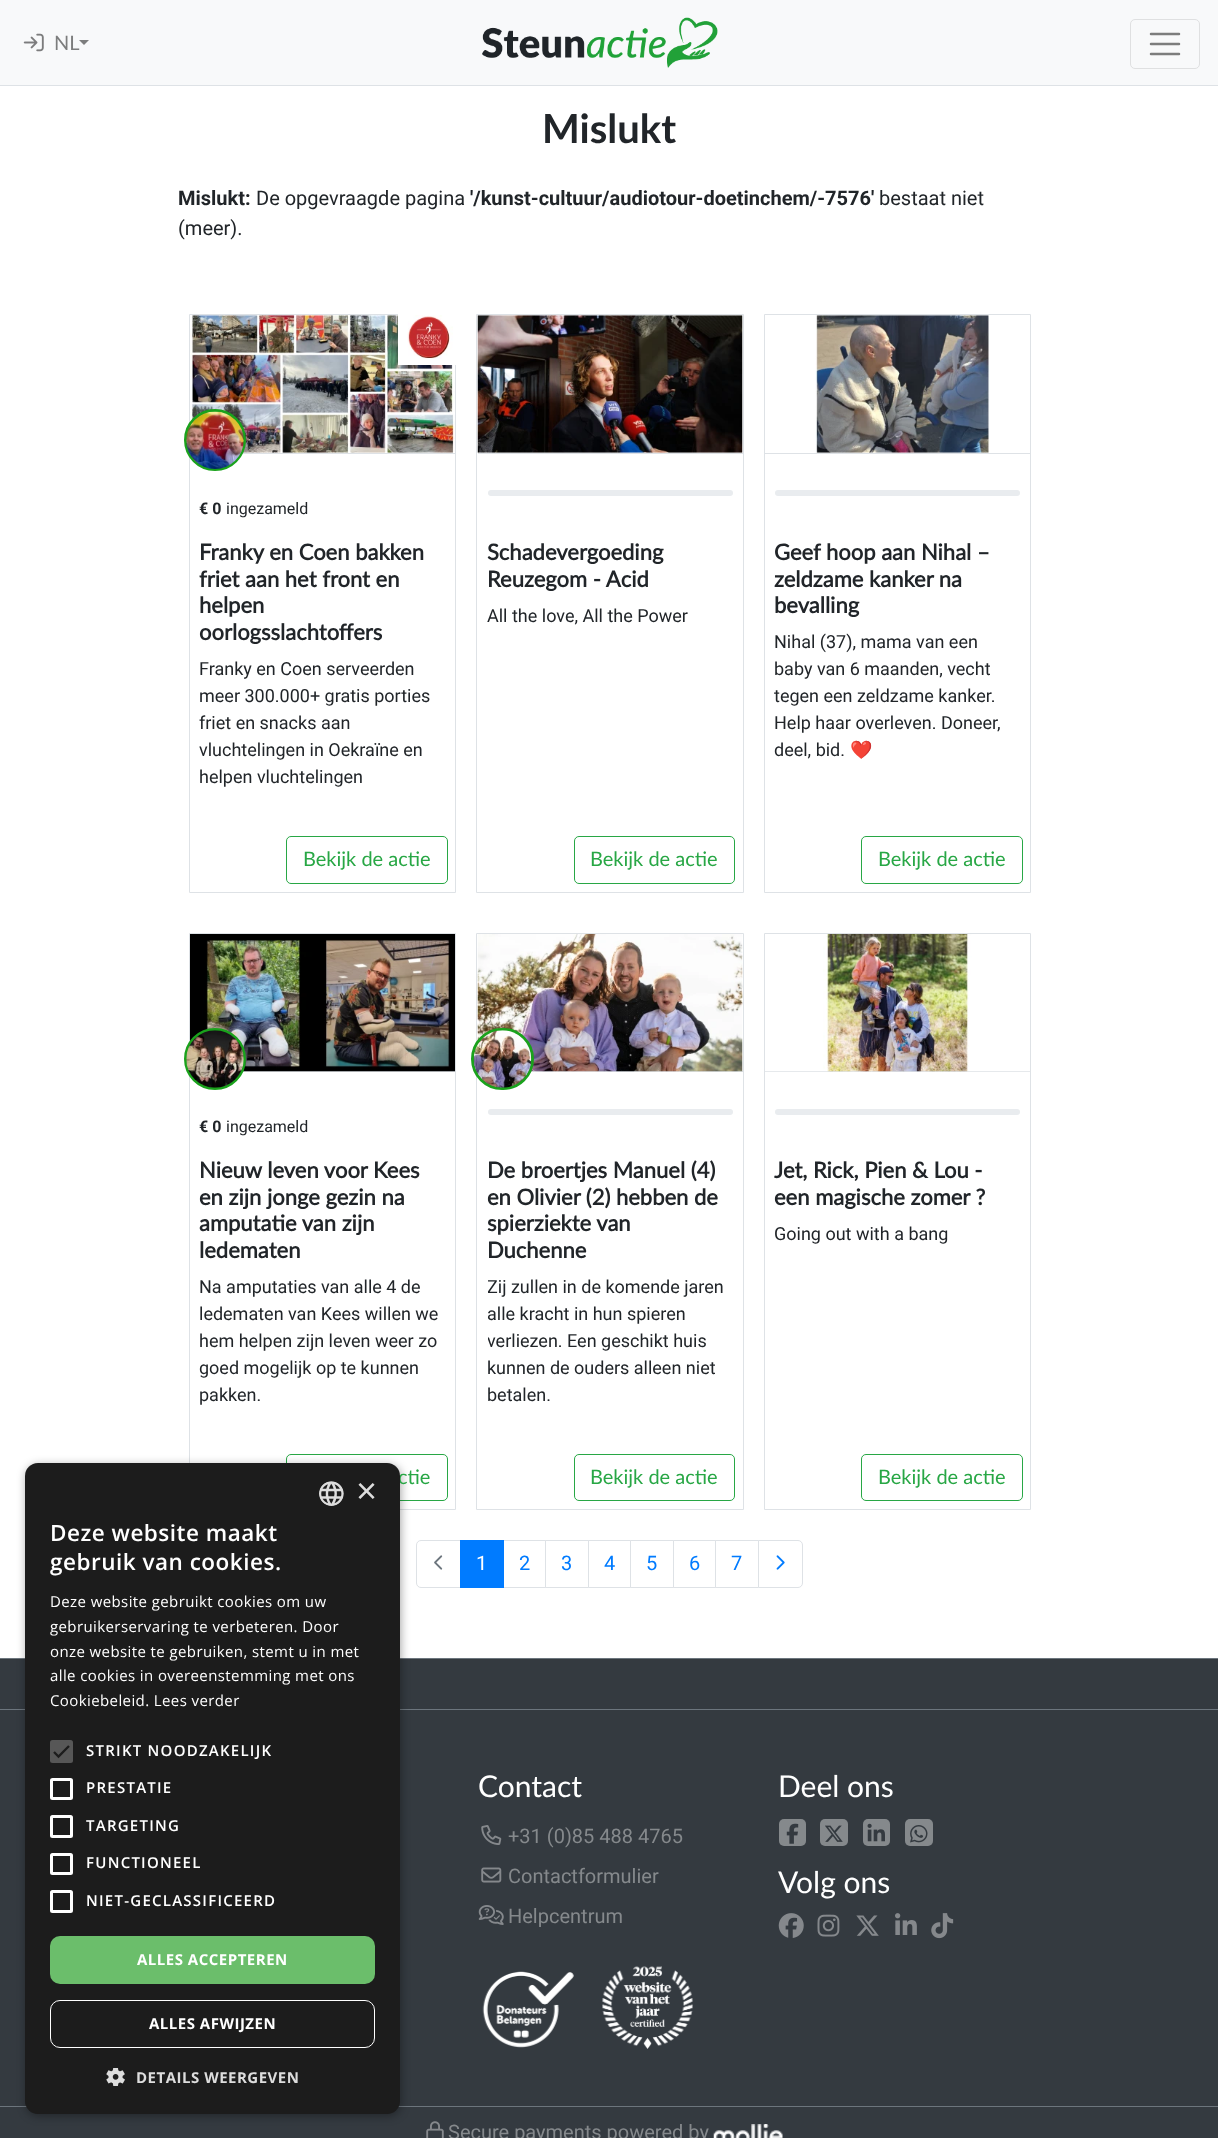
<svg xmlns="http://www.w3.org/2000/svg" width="1218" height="2138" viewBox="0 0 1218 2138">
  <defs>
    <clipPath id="clip1"><path d="M488 1274h245v165H488z"/></clipPath>
  </defs>
  <rect width="100%" height="100%" fill="#fff"/>
  <path d="M0 0h1218v85H0z" fill="#f8f9fa"/>
  <path d="M0 85h1218v1H0z" fill="#dee2e6"/>
  <image x="23" y="33" width="21" height="19" href="img/1.png"/>
  <path d="M79 40H89L84 45Z" fill="#7c7d7d"/>
  <image x="482" y="17" width="236" height="51" href="img/2.png"/>
  <rect x="1130.5" y="19.5" width="69" height="49" rx="4.5" fill="none" stroke="#dfe0e1"/>
  <path d="M1151 34H1179M1151 44H1179M1151 54H1179" fill="none" stroke="#7c7d7d" stroke-width="2.5" stroke-linecap="round"/>
  <path d="M189.5 314.5h266v578H189.5z" fill="none" stroke="#dee2e6"/>
  <path d="M242 453h213v1H242z" fill="#dee2e6"/>
  <image x="190" y="315" width="265" height="138" href="img/4.png"/>
  <path d="M398 314h58v51H398z" fill="#fff"/>
  <image x="407" y="315" width="46" height="44" href="img/3.png"/>
  <circle cx="215" cy="440" r="29.5" fill="none" stroke="#1aa21c" stroke-width="3"/>
  <image x="186" y="411" width="58" height="58" href="img/5.png"/>
  <rect x="286.5" y="836.5" width="161" height="47" rx="4.5" fill="none" stroke="#28a745"/>
  <path d="M476.5 314.5h267v578H476.5z" fill="none" stroke="#dee2e6"/>
  <path d="M478 453h265v1H478z" fill="#dee2e6"/>
  <image x="477" y="315" width="266" height="138" href="img/6.png"/>
  <rect x="488" y="490" width="245" height="6" rx="3" fill="#e9ecef"/>
  <rect x="574.5" y="836.5" width="160" height="47" rx="4.5" fill="none" stroke="#28a745"/>
  <path d="M764.5 314.5h266v578H764.5z" fill="none" stroke="#dee2e6"/>
  <path d="M765 453h265v1H765z" fill="#dee2e6"/>
  <image x="815" y="315" width="175" height="138" href="img/7.png"/>
  <rect x="775" y="490" width="245" height="6" rx="3" fill="#e9ecef"/>
  <rect x="861.5" y="836.5" width="161" height="47" rx="4.5" fill="none" stroke="#28a745"/>
  <path d="M189.5 933.5h266v576H189.5z" fill="none" stroke="#dee2e6"/>
  <path d="M240 1071h215v1H240z" fill="#dee2e6"/>
  <image x="190" y="934" width="265" height="138" href="img/8.png"/>
  <circle cx="215" cy="1059" r="29.5" fill="none" stroke="#1aa21c" stroke-width="3"/>
  <image x="186" y="1030" width="58" height="58" href="img/9.png"/>
  <rect x="286.5" y="1454.5" width="161" height="46" rx="4.5" fill="none" stroke="#28a745"/>
  <path d="M476.5 933.5h267v576H476.5z" fill="none" stroke="#dee2e6"/>
  <path d="M528 1071h215v1H528z" fill="#dee2e6"/>
  <image x="477" y="934" width="266" height="138" href="img/10.png"/>
  <rect x="472.5" y="1029.5" width="60" height="59" rx="29.5" fill="none" stroke="#1aa21c" stroke-width="3"/>
  <image x="473" y="1030" width="59" height="58" href="img/11.png"/>
  <rect x="488" y="1109" width="245" height="6" rx="3" fill="#e9ecef"/>
  <rect x="574.5" y="1454.5" width="160" height="46" rx="4.5" fill="none" stroke="#28a745"/>
  <path d="M764.5 933.5h266v576H764.5z" fill="none" stroke="#dee2e6"/>
  <path d="M765 1071h265v1H765z" fill="#dee2e6"/>
  <image x="765" y="934" width="265" height="138" href="img/12.png"/>
  <rect x="775" y="1109" width="245" height="6" rx="3" fill="#e9ecef"/>
  <rect x="861.5" y="1454.5" width="161" height="46" rx="4.5" fill="none" stroke="#28a745"/>
  <path d="M421 1540.5H460.5V1587.5H421C418.5 1587.5 416.5 1585.5 416.5 1583V1545C416.5 1542.5 418.5 1540.5 421 1540.5Z" fill="none" stroke="#dee2e6"/>
  <image x="434" y="1555" width="9" height="15" href="img/13.png"/>
  <path d="M503.5 1540.5h42v47H503.5z" fill="none" stroke="#dee2e6"/>
  <path d="M460 1540h44v48H460z" fill="#007bff"/>
  <path d="M545.5 1540.5h43v47H545.5z" fill="none" stroke="#dee2e6"/>
  <path d="M588.5 1540.5h42v47H588.5z" fill="none" stroke="#dee2e6"/>
  <path d="M630.5 1540.5h43v47H630.5z" fill="none" stroke="#dee2e6"/>
  <path d="M673.5 1540.5h42v47H673.5z" fill="none" stroke="#dee2e6"/>
  <path d="M715.5 1540.5h43v47H715.5z" fill="none" stroke="#dee2e6"/>
  <path d="M758.5 1540.5H798C800.5 1540.5 802.5 1542.5 802.5 1545V1583C802.5 1585.5 800.5 1587.5 798 1587.5H758.5Z" fill="#fff" stroke="#dee2e6"/>
  <image x="776" y="1555" width="9" height="15" href="img/14.png"/>
  <path d="M0 1659h1218v479H0z" fill="#343a40"/>
  <path d="M0 1658h1218v1H0z" fill="#6c757d"/>
  <path d="M0 1709h1218v1H0z" fill="#6c757d"/>
  <path d="M0 2106h1218v1H0z" fill="#6c757d"/>
  <rect x="26" y="1465" width="375" height="651" rx="13" fill="#00000059" filter="blur(5px)"/>
  <image x="481" y="1825" width="21" height="20" href="img/17.png"/>
  <image x="481" y="1867" width="21" height="16" href="img/18.png"/>
  <image x="478" y="1905" width="26" height="20" href="img/19.png"/>
  <image x="482" y="1971" width="92" height="77" href="img/20.png"/>
  <image x="602" y="1966" width="91" height="83" href="img/21.png"/>
  <rect x="779" y="1819" width="27" height="27" rx="5" fill="#85898c"/>
  <image x="786" y="1823" width="13" height="21" href="img/22.png"/>
  <rect x="820" y="1819" width="28" height="27" rx="5" fill="#85898c"/>
  <image x="825" y="1825" width="18" height="17" href="img/23.png"/>
  <rect x="863" y="1819" width="27" height="27" rx="5" fill="#85898c"/>
  <image x="867" y="1823" width="18" height="19" href="img/24.png"/>
  <rect x="905" y="1819" width="28" height="27" rx="5" fill="#85898c"/>
  <image x="910" y="1825" width="18" height="18" href="img/25.png"/>
  <image x="778" y="1913" width="26" height="25" href="img/26.png"/>
  <image x="817" y="1914" width="23" height="23" href="img/27.png"/>
  <image x="856" y="1915" width="23" height="21" href="img/28.png"/>
  <image x="895" y="1913" width="22" height="22" href="img/29.png"/>
  <image x="931" y="1913" width="23" height="26" href="img/30.png"/>
  <image x="426" y="2121" width="18" height="17" href="img/31.png"/>
  <image x="713" y="2124" width="70" height="14" href="img/32.png"/>
  <text x="54" y="50" font-family="Lato" font-size="20" fill="#7c7d7d">NL</text>
  <text x="542" y="143" font-family="Lato" font-size="40" font-weight="bold" fill="#212529">Mislukt</text>
  <text x="178" y="205" font-family="Roboto" font-size="20" font-weight="bold" fill="#212529">Mislukt:</text>
  <text x="256" y="205" font-family="Roboto" font-size="20" fill="#212529">De opgevraagde pagina</text>
  <text x="470" y="205" font-family="Roboto" font-size="20" font-weight="bold" fill="#212529">'/kunst-cultuur/audiotour-doetinchem/-7576'</text>
  <g font-family="Roboto" font-size="20" fill="#212529">
    <text x="879" y="205">bestaat niet</text>
    <text x="178" y="235">(meer).</text>
  </g>
  <text x="199" y="514" font-family="Roboto" font-size="16" font-weight="bold" fill="#212529">€ 0</text>
  <text x="226" y="514" font-family="Roboto" font-size="16" fill="#212529">ingezameld</text>
  <g font-family="'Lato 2'" font-size="22" font-weight="bold" fill="#212529">
    <text x="199" y="560">Franky en Coen bakken</text>
    <text x="199" y="587">friet aan het front en</text>
    <text x="199" y="613">helpen</text>
    <text x="199" y="640">oorlogsslachtoffers</text>
  </g>
  <g font-family="Roboto" font-size="18" fill="#212529">
    <text x="199" y="675">Franky en Coen serveerden</text>
    <text x="199" y="702">meer 300.000+ gratis porties</text>
    <text x="199" y="729">friet en snacks aan</text>
    <text x="199" y="756">vluchtelingen in Oekraïne en</text>
    <text x="199" y="783">helpen vluchtelingen</text>
  </g>
  <text x="303" y="866" font-family="Lato" font-size="20" fill="#28a745">Bekijk de actie</text>
  <g font-family="'Lato 2'" font-size="22" font-weight="bold" fill="#212529">
    <text x="487" y="560">Schadevergoeding</text>
    <text x="487" y="587">Reuzegom - Acid</text>
  </g>
  <text x="487" y="622" font-family="Roboto" font-size="18" fill="#212529">All the love, All the Power</text>
  <text x="590" y="866" font-family="Lato" font-size="20" fill="#28a745">Bekijk de actie</text>
  <g font-family="'Lato 2'" font-size="22" font-weight="bold" fill="#212529">
    <text x="774" y="560">Geef hoop aan Nihal –</text>
    <text x="774" y="587">zeldzame kanker na</text>
    <text x="774" y="613">bevalling</text>
  </g>
  <g font-family="Roboto" font-size="18" fill="#212529">
    <text x="774" y="648">Nihal (37), mama van een</text>
    <text x="774" y="675">baby van 6 maanden, vecht</text>
    <text x="774" y="702">tegen een zeldzame kanker.</text>
    <text x="774" y="729">Help haar overleven. Doneer,</text>
    <text x="774" y="756">deel, bid.</text>
  </g>
  <text x="850" y="756" font-family="Noto Color Emoji" font-size="18" fill="#212529">❤️</text>
  <text x="878" y="866" font-family="Lato" font-size="20" fill="#28a745">Bekijk de actie</text>
  <text x="199" y="1132" font-family="Roboto" font-size="16" font-weight="bold" fill="#212529">€ 0</text>
  <text x="226" y="1132" font-family="Roboto" font-size="16" fill="#212529">ingezameld</text>
  <g font-family="'Lato 2'" font-size="22" font-weight="bold" fill="#212529">
    <text x="199" y="1178">Nieuw leven voor Kees</text>
    <text x="199" y="1205">en zijn jonge gezin na</text>
    <text x="199" y="1231">amputatie van zijn</text>
    <text x="199" y="1258">ledematen</text>
  </g>
  <g font-family="Roboto" font-size="18" fill="#212529">
    <text x="199" y="1293">Na amputaties van alle 4 de</text>
    <text x="199" y="1320">ledematen van Kees willen we</text>
    <text x="199" y="1347">hem helpen zijn leven weer zo</text>
    <text x="199" y="1374">goed mogelijk op te kunnen</text>
    <text x="199" y="1401">pakken.</text>
  </g>
  <text x="398" y="1484" font-family="Lato" font-size="20" fill="#28a745">ctie</text>
  <g font-family="'Lato 2'" font-size="22" font-weight="bold" fill="#212529">
    <text x="487" y="1178">De broertjes Manuel (4)</text>
    <text x="487" y="1205">en Olivier (2) hebben de</text>
    <text x="487" y="1231">spierziekte van</text>
    <text x="487" y="1258">Duchenne</text>
  </g>
  <g clip-path="url(#clip1)">
    <text x="487" y="1293" font-family="Roboto" font-size="18" fill="#212529">Zij zullen in de komende jaren</text>
  </g>
  <text x="487" y="1320" font-family="Roboto" font-size="18" fill="#212529">alle kracht in hun spieren</text>
  <g clip-path="url(#clip1)">
    <text x="487" y="1347" font-family="Roboto" font-size="18" fill="#212529">verliezen. Een geschikt huis</text>
  </g>
  <g font-family="Roboto" font-size="18" fill="#212529">
    <text x="487" y="1374">kunnen de ouders alleen niet</text>
    <text x="487" y="1401">betalen.</text>
  </g>
  <text x="590" y="1484" font-family="Lato" font-size="20" fill="#28a745">Bekijk de actie</text>
  <g font-family="'Lato 2'" font-size="22" font-weight="bold" fill="#212529">
    <text x="774" y="1178">Jet, Rick, Pien &amp; Lou -</text>
    <text x="774" y="1205">een magische zomer ?</text>
  </g>
  <text x="774" y="1240" font-family="Roboto" font-size="18" fill="#212529">Going out with a bang</text>
  <text x="878" y="1484" font-family="Lato" font-size="20" fill="#28a745">Bekijk de actie</text>
  <text x="476" y="1570" font-family="Roboto" font-size="20" fill="#fff">1</text>
  <g font-family="Roboto" font-size="20" fill="#007bff">
    <text x="519" y="1570">2</text>
    <text x="561" y="1570">3</text>
    <text x="604" y="1570">4</text>
    <text x="646" y="1570">5</text>
    <text x="689" y="1570">6</text>
    <text x="731" y="1570">7</text>
  </g>
  <rect x="25" y="1463" width="375" height="651" rx="13" fill="#1c1c1c"/>
  <image x="319" y="1481" width="25" height="25" href="img/15.png"/>
  <text x="356" y="1503" font-family="Liberation Sans" font-size="36" fill="#ddd">×</text>
  <g font-family="Open Sans" font-size="22.5" font-weight="600" letter-spacing="0.5" fill="#fff">
    <text x="50" y="1541">Deze website maakt</text>
    <text x="50" y="1570">gebruik van cookies.</text>
  </g>
  <g font-family="Open Sans" font-size="15" letter-spacing="0.4" fill="#fff">
    <text x="50" y="1607">Deze website gebruikt cookies om uw</text>
    <text x="50" y="1632">gebruikerservaring te verbeteren. Door</text>
    <text x="50" y="1657">onze website te gebruiken, stemt u in met</text>
    <text x="50" y="1681">alle cookies in overeenstemming met ons</text>
    <text x="50" y="1706">Cookiebeleid. Lees verder</text>
  </g>
  <rect x="50" y="1740" width="23" height="23" rx="2.5" fill="#575757"/>
  <path d="M54 1752L58.5 1756.5L69 1746" fill="none" stroke="#1c1c1c" stroke-width="2.3"/>
  <text x="86" y="1756" font-family="Open Sans" font-size="15" font-weight="600" letter-spacing="1.25" fill="#fff">STRIKT NOODZAKELIJK</text>
  <rect x="51.5" y="1779.5" width="20" height="19" rx="1" fill="none" stroke="#fff" stroke-width="3"/>
  <text x="86" y="1793" font-family="Open Sans" font-size="15" font-weight="600" letter-spacing="1.25" fill="#fff">PRESTATIE</text>
  <rect x="51.5" y="1816.5" width="20" height="20" rx="1" fill="none" stroke="#fff" stroke-width="3"/>
  <text x="86" y="1831" font-family="Open Sans" font-size="15" font-weight="600" letter-spacing="1.25" fill="#fff">TARGETING</text>
  <rect x="51.5" y="1854.5" width="20" height="19" rx="1" fill="none" stroke="#fff" stroke-width="3"/>
  <text x="86" y="1868" font-family="Open Sans" font-size="15" font-weight="600" letter-spacing="1.25" fill="#fff">FUNCTIONEEL</text>
  <rect x="51.5" y="1891.5" width="20" height="20" rx="1" fill="none" stroke="#fff" stroke-width="3"/>
  <text x="86" y="1906" font-family="Open Sans" font-size="15" font-weight="600" letter-spacing="1.25" fill="#fff">NIET-GECLASSIFICEERD</text>
  <rect x="50" y="1936" width="325" height="48" rx="10" fill="#6bbe6b"/>
  <text x="137" y="1965" font-family="Open Sans" font-size="15" font-weight="bold" letter-spacing="0.5" fill="#fff">ALLES ACCEPTEREN</text>
  <rect x="50.5" y="2000.5" width="324" height="47" rx="9.5" fill="none" stroke="#fff"/>
  <text x="149" y="2029" font-family="Open Sans" font-size="15" font-weight="bold" letter-spacing="0.5" fill="#fff">ALLES AFWIJZEN</text>
  <image x="106" y="2068" width="19" height="18" href="img/16.png"/>
  <text x="136" y="2083" font-family="Open Sans" font-size="15" font-weight="bold" letter-spacing="0.5" fill="#ddd">DETAILS WEERGEVEN</text>
  <text x="478" y="1797" font-family="Lato" font-size="30" fill="#fff">Contact</text>
  <g font-family="Roboto" font-size="20" fill="#85898c">
    <text x="508" y="1843">+31 (0)85 488 4765</text>
    <text x="508" y="1883">Contactformulier</text>
    <text x="508" y="1923">Helpcentrum</text>
  </g>
  <g font-family="Lato" font-size="30" fill="#fff">
    <text x="778" y="1797">Deel ons</text>
    <text x="778" y="1893">Volg ons</text>
  </g>
  <text x="448" y="2139" font-family="Roboto" font-size="20" fill="#85898c">Secure payments powered by</text>
</svg>
